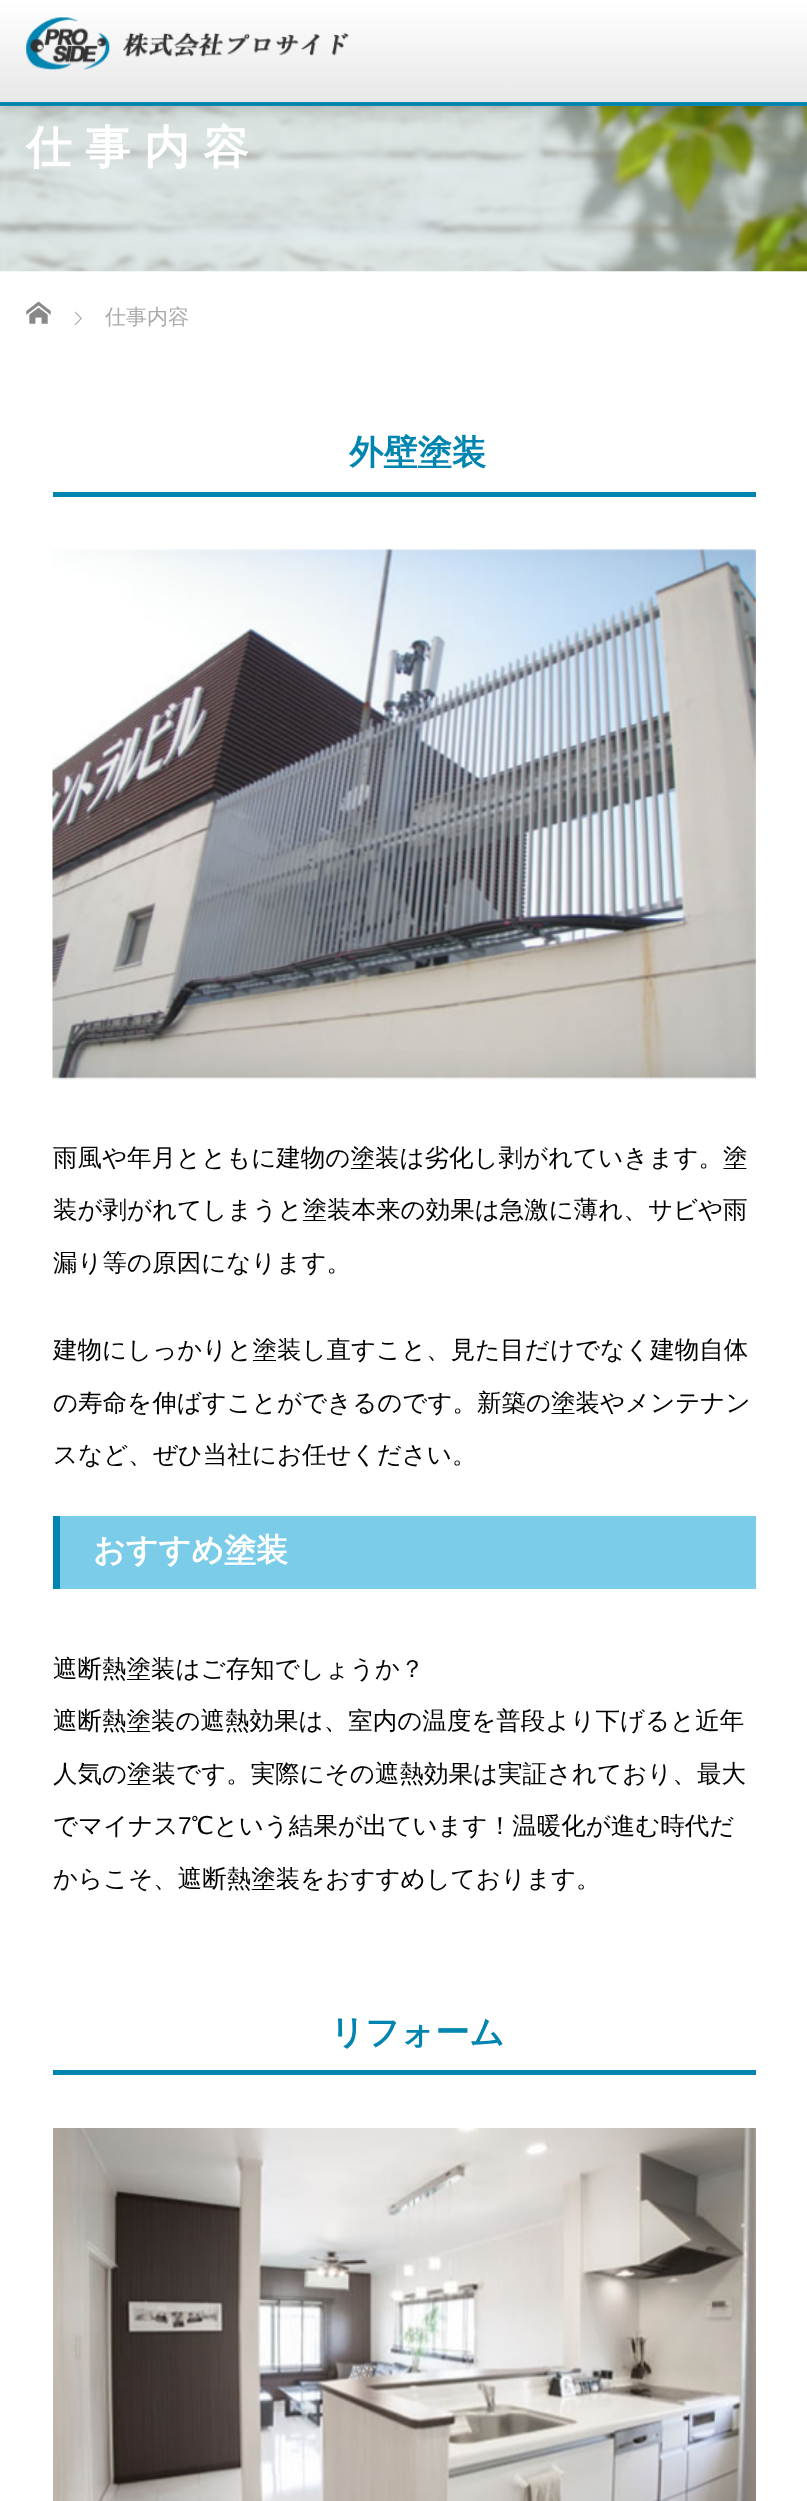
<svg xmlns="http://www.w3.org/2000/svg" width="807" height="2501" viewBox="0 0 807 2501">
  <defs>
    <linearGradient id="g1" gradientUnits="userSpaceOnUse" x1="404" y1="0" x2="404" y2="102"><stop offset="0" stop-color="#fff"/><stop offset="1" stop-color="#e8e8e8"/></linearGradient>
  </defs>
  <rect width="100%" height="100%" fill="#fff"/>
  <image x="0" y="106" width="807" height="166" href="img/2.png"/>
  <path d="M0 0h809v105H0z" fill="#0000004d" filter="blur(9px)"/>
  <path d="M0 0h807v102H0z" fill="url(#g1)"/>
  <path d="M0 102h807v4H0z" fill="#0084b0"/>
  <image x="26" y="17" width="323" height="53" href="img/1.png"/>
  <image x="26" y="301" width="25" height="23" href="img/3.png"/>
  <image x="74" y="311" width="8" height="15" href="img/4.png"/>
  <path d="M53 492h703v5H53z" fill="#0084b0"/>
  <image x="52" y="549" width="704" height="531" href="img/5.png"/>
  <path d="M60 1516h696v73H60z" fill="#7acce8"/>
  <path d="M53 1516h7v73H53z" fill="#0084b0"/>
  <path d="M53 2070h703v5H53z" fill="#0084b0"/>
  <image x="53" y="2128" width="703" height="373" href="img/6.png"/>
  <text x="26" y="163" font-family="WenQuanYi Zen Hei" font-size="45.5" font-weight="bold" letter-spacing="13.5" fill="#fff">仕事内容</text>
  <text x="105" y="324" font-family="WenQuanYi Zen Hei" font-size="21" font-weight="500" fill="#aaa">仕事内容</text>
  <text x="349" y="464" font-family="WenQuanYi Zen Hei" font-size="34.25" font-weight="bold" fill="#0084b0">外壁塗装</text>
  <g font-family="WenQuanYi Zen Hei" font-size="24.5" font-weight="500" fill="#000">
    <text x="53" y="1166">雨風や年月とともに建物の塗装は劣化し剥がれていきます。塗</text>
    <text x="53" y="1218">装が剥がれてしまうと塗装本来の効果は急激に薄れ、サビや雨</text>
    <text x="53" y="1271">漏り等の原因になります。</text>
    <text x="53" y="1358">建物にしっかりと塗装し直すこと、見た目だけでなく建物自体</text>
    <text x="53" y="1411">の寿命を伸ばすことができるのです。新築の塗装やメンテナン</text>
    <text x="53" y="1463">スなど、ぜひ当社にお任せください。</text>
  </g>
  <text x="93" y="1561" font-family="WenQuanYi Zen Hei" font-size="32" font-weight="bold" fill="#fff">おすすめ塗装</text>
  <g font-family="WenQuanYi Zen Hei" font-size="24.5" font-weight="500" fill="#000">
    <text x="53" y="1677">遮断熱塗装はご存知でしょうか？</text>
    <text x="53" y="1729">遮断熱塗装の遮熱効果は、室内の温度を普段より下げると近年</text>
    <text x="53" y="1782">人気の塗装です。実際にその遮熱効果は実証されており、最大</text>
    <text x="53" y="1834">でマイナス</text>
  </g>
  <text x="178" y="1834" font-family="Liberation Sans" font-size="24.5" fill="#000">7</text>
  <g font-family="WenQuanYi Zen Hei" font-size="24.5" font-weight="500" fill="#000">
    <text x="191" y="1834">℃という結果が出ています！温暖化が進む時代だ</text>
    <text x="53" y="1887">からこそ、遮断熱塗装をおすすめしております。</text>
  </g>
  <text x="330" y="2044" font-family="WenQuanYi Zen Hei" font-size="34.25" font-weight="bold" fill="#0084b0">リフォーム</text>
</svg>
